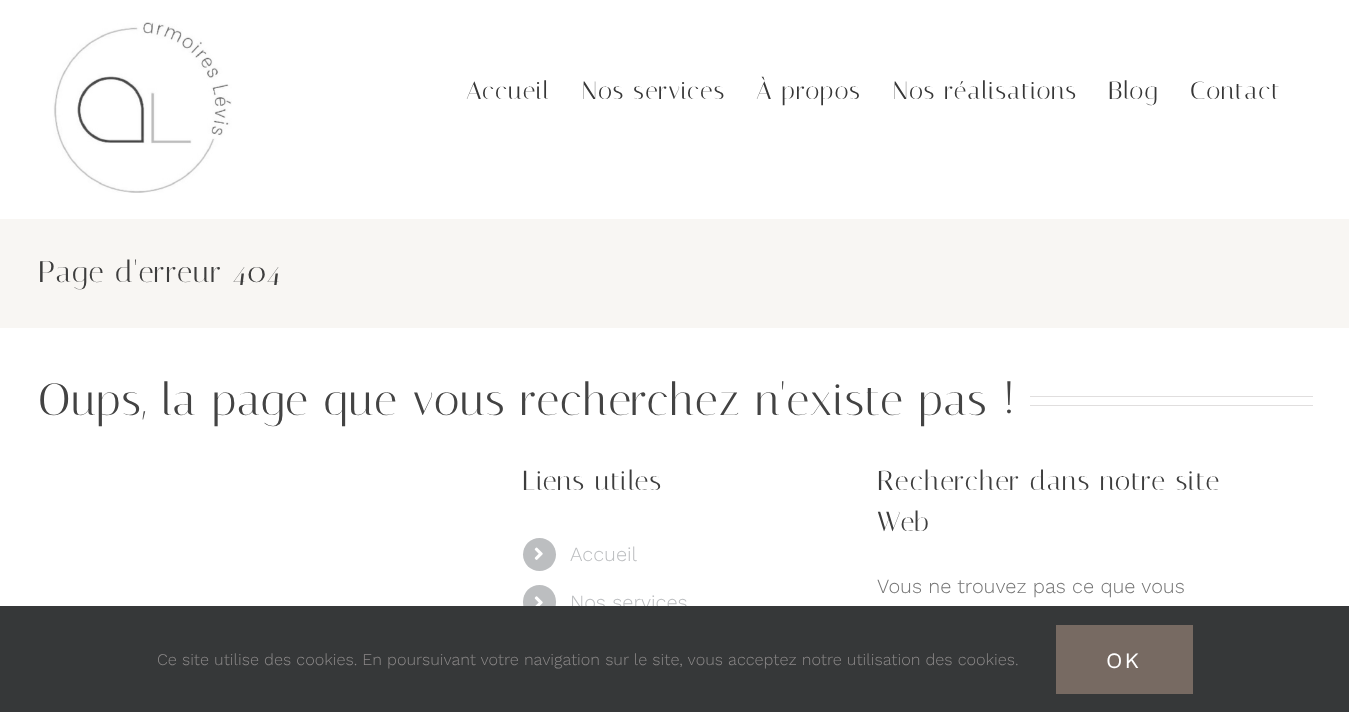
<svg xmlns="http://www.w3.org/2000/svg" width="1349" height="712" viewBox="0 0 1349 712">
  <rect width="100%" height="100%" fill="#fff"/>
  <image x="53" y="22" width="179" height="171" href="img/1.png"/>
  <path d="M0 219h1349v109H0z" fill="#f8f6f3"/>
  <path d="M1030 396h283v1H1030z" fill="#e0dede"/>
  <path d="M1030 405h283v1H1030z" fill="#e0dede"/>
  <circle cx="539.5" cy="554.5" r="16.5" fill="#bcbec0"/>
  <image x="534" y="547" width="9" height="13" href="img/2.png"/>
  <rect x="523" y="585" width="33" height="34" rx="16.5" fill="#bcbec0"/>
  <image x="534" y="596" width="9" height="10" href="img/3.png"/>
  <g font-family="Italiana" font-size="25" letter-spacing="1.25" fill="#373737">
    <text x="466" y="99">Accueil</text>
    <text x="582" y="99">Nos services</text>
    <text x="756" y="99">À propos</text>
    <text x="893" y="99">Nos réalisations</text>
    <text x="1108" y="99">Blog</text>
    <text x="1190" y="99">Contact</text>
  </g>
  <text x="38" y="282" font-family="Italiana" font-size="30" letter-spacing="1.25" fill="#3d3d3d">Page d'erreur 404</text>
  <text x="38" y="415" font-family="Italiana" font-size="45" letter-spacing="1.25" fill="#434343">Oups, la page que vous recherchez n'existe pas !</text>
  <text x="522" y="490" font-family="Italiana" font-size="27.5" letter-spacing="1.25" fill="#3d3d3d">Liens utiles</text>
  <g font-family="Work Sans" font-size="20" font-weight="300" fill="#bcbec0">
    <text x="570" y="561">Accueil</text>
    <text x="570" y="609">Nos services</text>
  </g>
  <g font-family="Italiana" font-size="27.5" letter-spacing="1.25" fill="#3d3d3d">
    <text x="877" y="490">Rechercher dans notre site</text>
    <text x="877" y="531">Web</text>
  </g>
  <text x="877" y="593" font-family="Work Sans" font-size="20" font-weight="300" fill="#747474">Vous ne trouvez pas ce que vous</text>
  <path d="M0 606h1349v106H0z" fill="#363839"/>
  <text x="157" y="665" font-family="Work Sans" font-size="16.25" font-weight="300" fill="#8c8989">Ce site utilise des cookies. En poursuivant votre navigation sur le site, vous acceptez notre utilisation des cookies.</text>
  <path d="M1056 625h137v69H1056z" fill="#776a62"/>
  <text x="1106" y="668" font-family="Work Sans" font-size="22" letter-spacing="2" fill="#fff">OK</text>
</svg>
